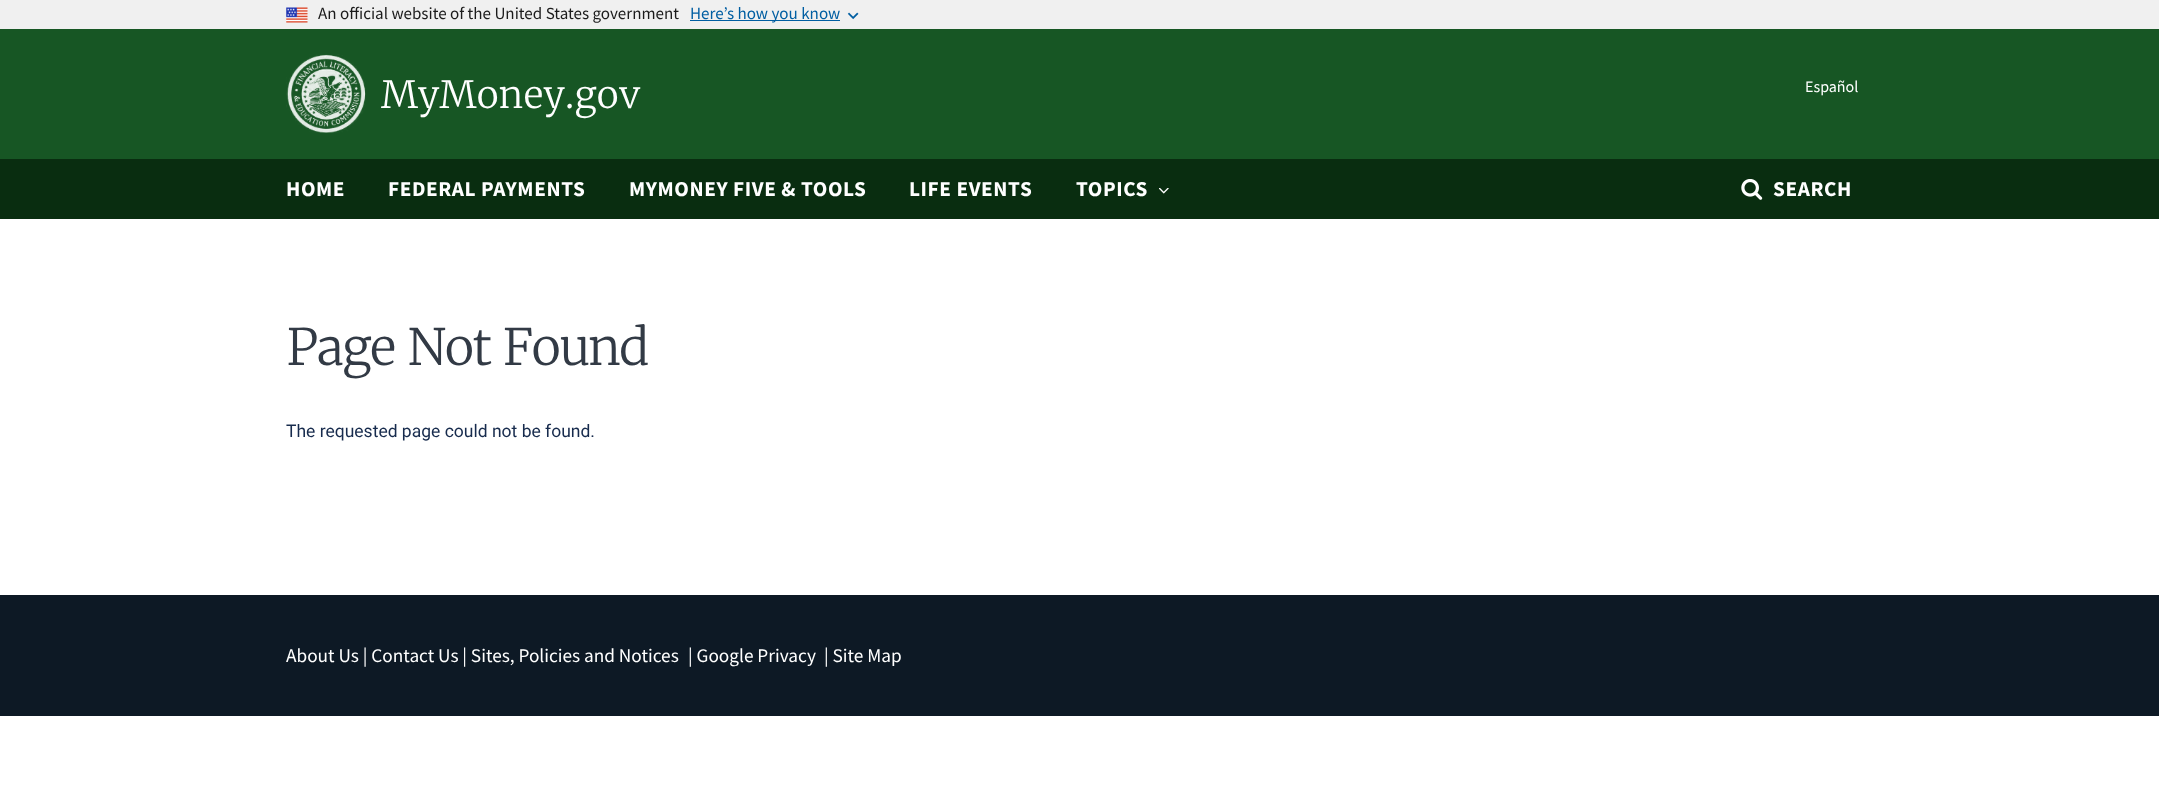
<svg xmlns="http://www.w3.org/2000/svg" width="2159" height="794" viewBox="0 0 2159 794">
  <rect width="100%" height="100%" fill="#fff"/>
  <path d="M0 0h2159v29H0z" fill="#f0f0f0"/>
  <image x="286" y="7" width="22" height="16" href="img/1.png"/>
  <path d="M690 20h150v1H690z" fill="#005ea2"/>
  <image x="847" y="12" width="12" height="8" href="img/2.png"/>
  <path d="M0 29h2159v130H0z" fill="#175624"/>
  <image x="286" y="54" width="80" height="79" href="img/3.png"/>
  <path d="M0 159h2159v60H0z" fill="#092d10"/>
  <image x="1159" y="188" width="10" height="6" href="img/4.png"/>
  <image x="1741" y="179" width="22" height="21" href="img/5.png"/>
  <path d="M0 595h2159v121H0z" fill="#0d1925"/>
  <text x="318" y="19" font-family="Source Sans Pro" font-size="17" fill="#1b1b1b">An official website of the United States government</text>
  <text x="690" y="19" font-family="Source Sans Pro" font-size="17" fill="#005ea2">Here’s how you know</text>
  <text x="381" y="108" font-family="Merriweather" font-size="37.5" font-weight="300" fill="#fff">MyMoney.gov</text>
  <text x="1805" y="92" font-family="Source Sans Pro" font-size="16" fill="#fff">Español</text>
  <g font-family="Source Sans Pro" font-size="21.25" font-weight="bold" letter-spacing="0.6" fill="#fff">
    <text x="286" y="196">HOME</text>
    <text x="388" y="196">FEDERAL PAYMENTS</text>
    <text x="629" y="196">MYMONEY FIVE &amp; TOOLS</text>
    <text x="909" y="196">LIFE EVENTS</text>
    <text x="1076" y="196">TOPICS</text>
    <text x="1773" y="196">SEARCH</text>
  </g>
  <text x="286" y="365" font-family="Merriweather" font-size="50" font-weight="300" letter-spacing="-2.1" fill="#323a45">Page Not Found</text>
  <text x="286" y="437" font-family="Roboto" font-size="17.5" fill="#172b4d">The requested page could not be found.</text>
  <g font-family="Source Sans Pro" font-size="19.3" fill="#fff">
    <text x="286" y="662">About Us | Contact Us | Sites, Policies and Notices</text>
    <text x="688" y="662">| Google Privacy</text>
    <text x="824" y="662">| Site Map</text>
  </g>
</svg>
